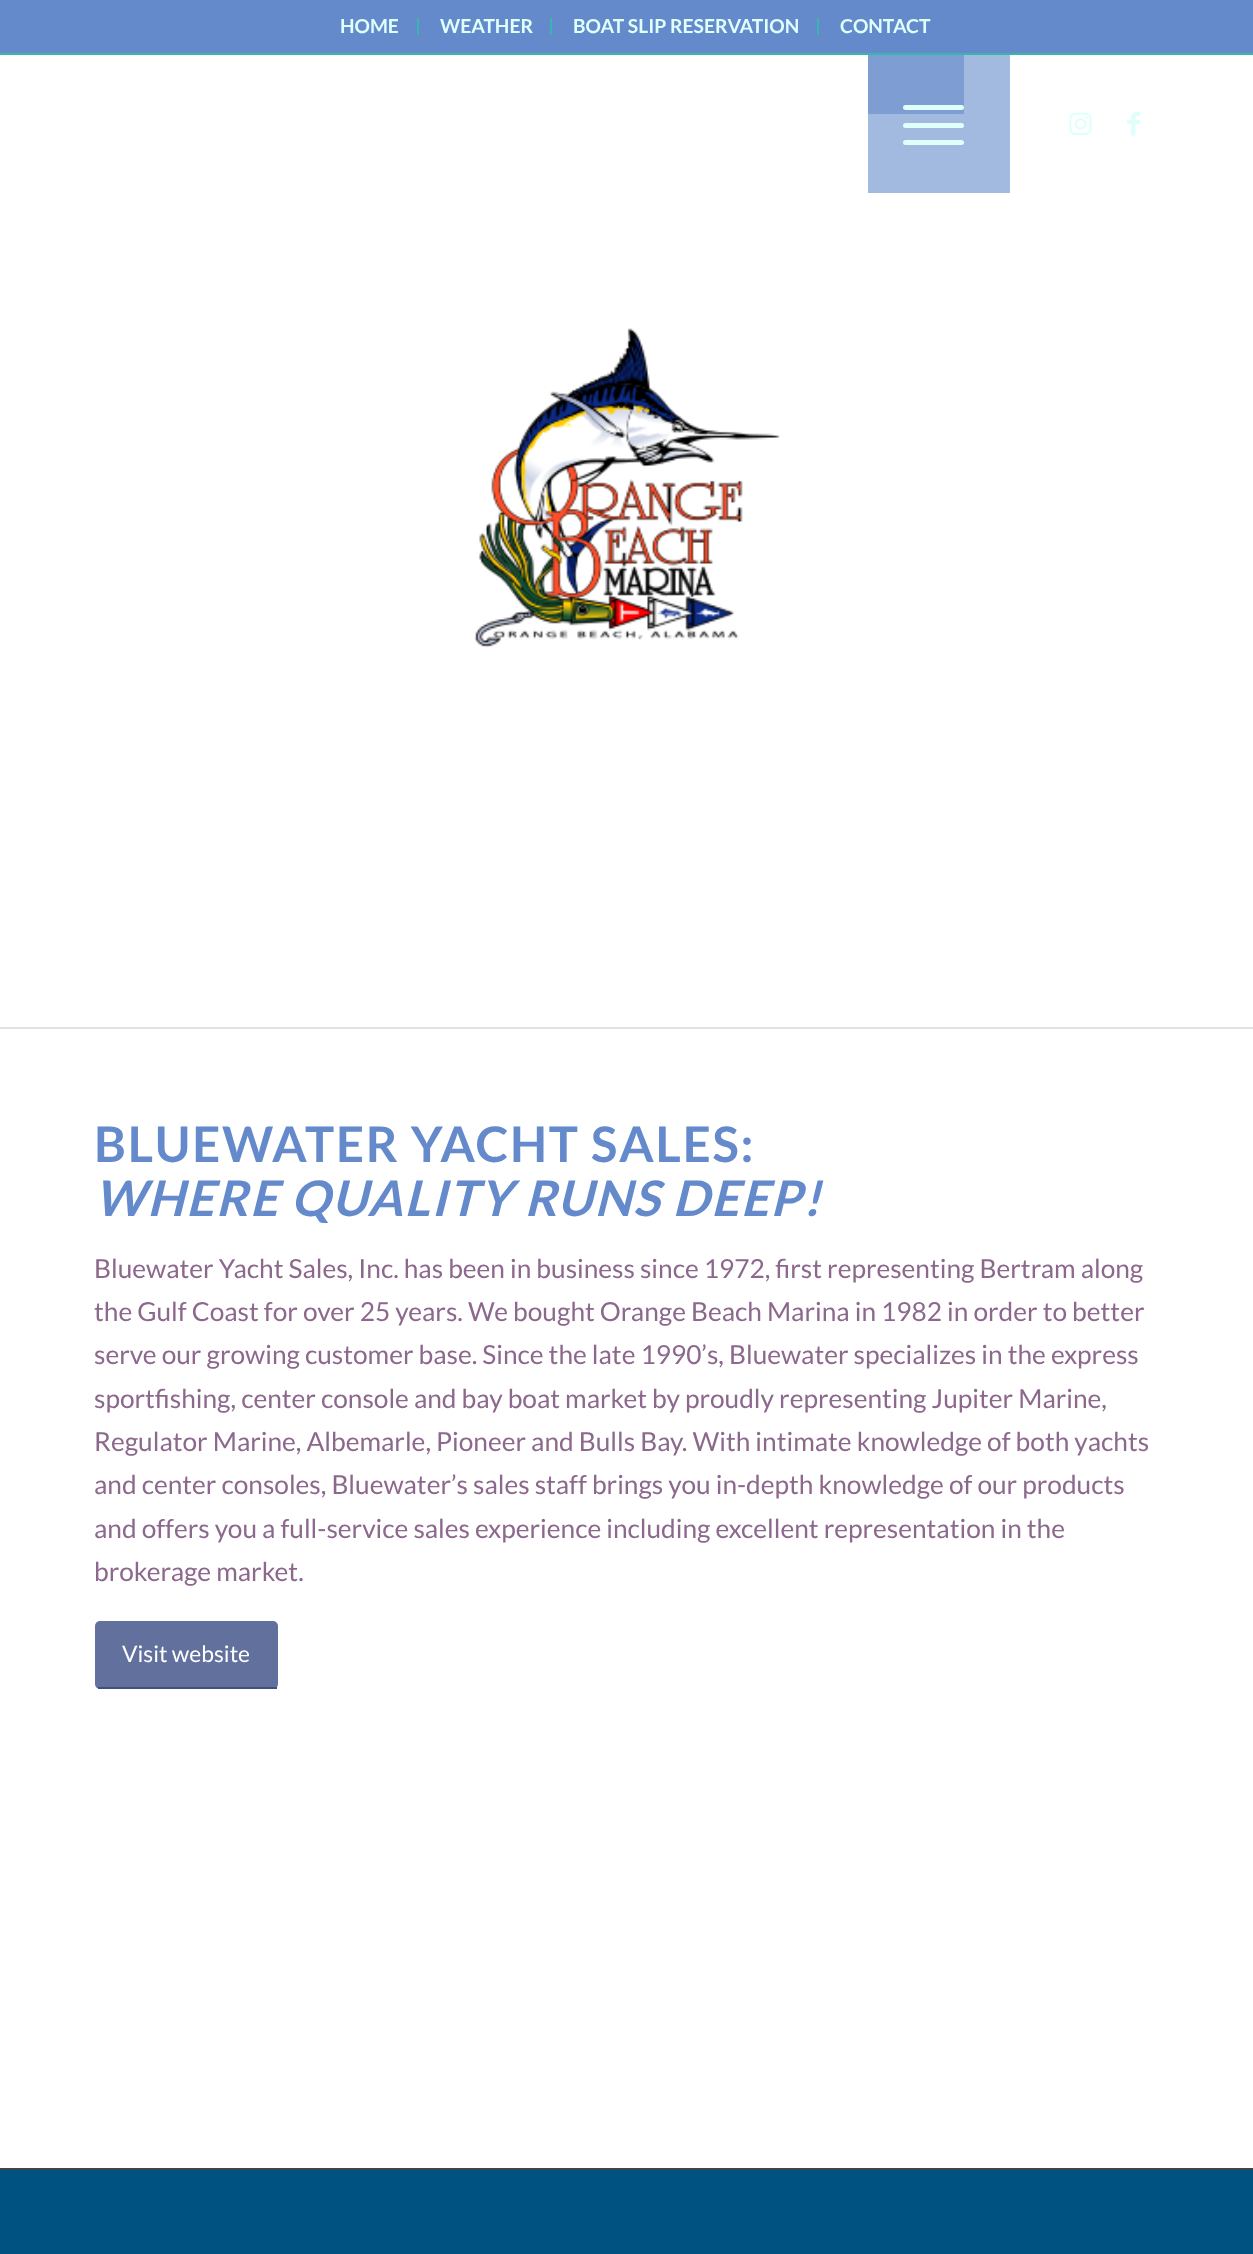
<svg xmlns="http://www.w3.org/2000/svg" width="1253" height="2254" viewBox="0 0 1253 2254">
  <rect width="100%" height="100%" fill="#fff"/>
  <path d="M0 0h1253v53H0z" fill="#648acb"/>
  <path d="M0 53h1253v2H0z" fill="#38b5ad"/>
  <path d="M417 18h2v17H417z" fill="#38b5ad"/>
  <path d="M550 18h2v17H550z" fill="#38b5ad"/>
  <path d="M817 18h2v17H817z" fill="#38b5ad"/>
  <path d="M868 55h142v138H868z" fill="#a2b9e0"/>
  <path d="M868 55h96v59H868z" fill="#7d9dd3"/>
  <rect x="903" y="123" width="61" height="5" rx="2.5" fill="#defffc"/>
  <rect x="903" y="105" width="61" height="5" rx="2.5" fill="#defffc"/>
  <rect x="903" y="140" width="61" height="5" rx="2.5" fill="#defffc"/>
  <image x="1069" y="112" width="23" height="23" href="img/1.png"/>
  <image x="1127" y="112" width="14" height="24" href="img/2.png"/>
  <image x="474" y="328" width="306" height="320" href="img/3.png"/>
  <path d="M0 1027h1253v2H0z" fill="#e1e1e1"/>
  <rect x="95" y="1621" width="183" height="68" rx="5" fill="#62709e"/>
  <path d="M98 1687h179v2H98z" fill="#40507c"/>
  <path d="M0 2170h1253v84H0z" fill="#005380"/>
  <path d="M0 2168h1253v2H0z" fill="#444"/>
  <g font-family="Lato" font-size="19.25" font-weight="bold" fill="#defffc">
    <text x="340" y="33">HOME</text>
    <text x="440" y="33">WEATHER</text>
    <text x="573" y="33">BOAT SLIP RESERVATION</text>
    <text x="840" y="33">CONTACT</text>
  </g>
  <text x="94" y="1162" font-family="Lato" font-size="49" font-weight="bold" letter-spacing="1.75" fill="#648acb">BLUEWATER YACHT SALES:</text>
  <text x="94" y="1216" font-family="Lato" font-size="49" font-weight="bold" font-style="italic" letter-spacing="1.75" fill="#648acb">WHERE QUALITY RUNS DEEP!</text>
  <g font-family="Lato" font-size="26.25" fill="#8c688c">
    <text x="94" y="1278">Bluewater Yacht Sales, Inc. has been in business since 1972, first representing Bertram along</text>
    <text x="94" y="1321">the Gulf Coast for over 25 years. We bought Orange Beach Marina in 1982 in order to better</text>
    <text x="94" y="1364">serve our growing customer base. Since the late 1990’s, Bluewater specializes in the express</text>
    <text x="94" y="1408">sportfishing, center console and bay boat market by proudly representing Jupiter Marine,</text>
    <text x="94" y="1451">Regulator Marine, Albemarle, Pioneer and Bulls Bay. With intimate knowledge of both yachts</text>
    <text x="94" y="1494">and center consoles, Bluewater’s sales staff brings you in-depth knowledge of our products</text>
    <text x="94" y="1538">and offers you a full-service sales experience including excellent representation in the</text>
    <text x="94" y="1581">brokerage market.</text>
  </g>
  <text x="122" y="1662" font-family="Lato" font-size="22.75" fill="#fff">Visit website</text>
</svg>
